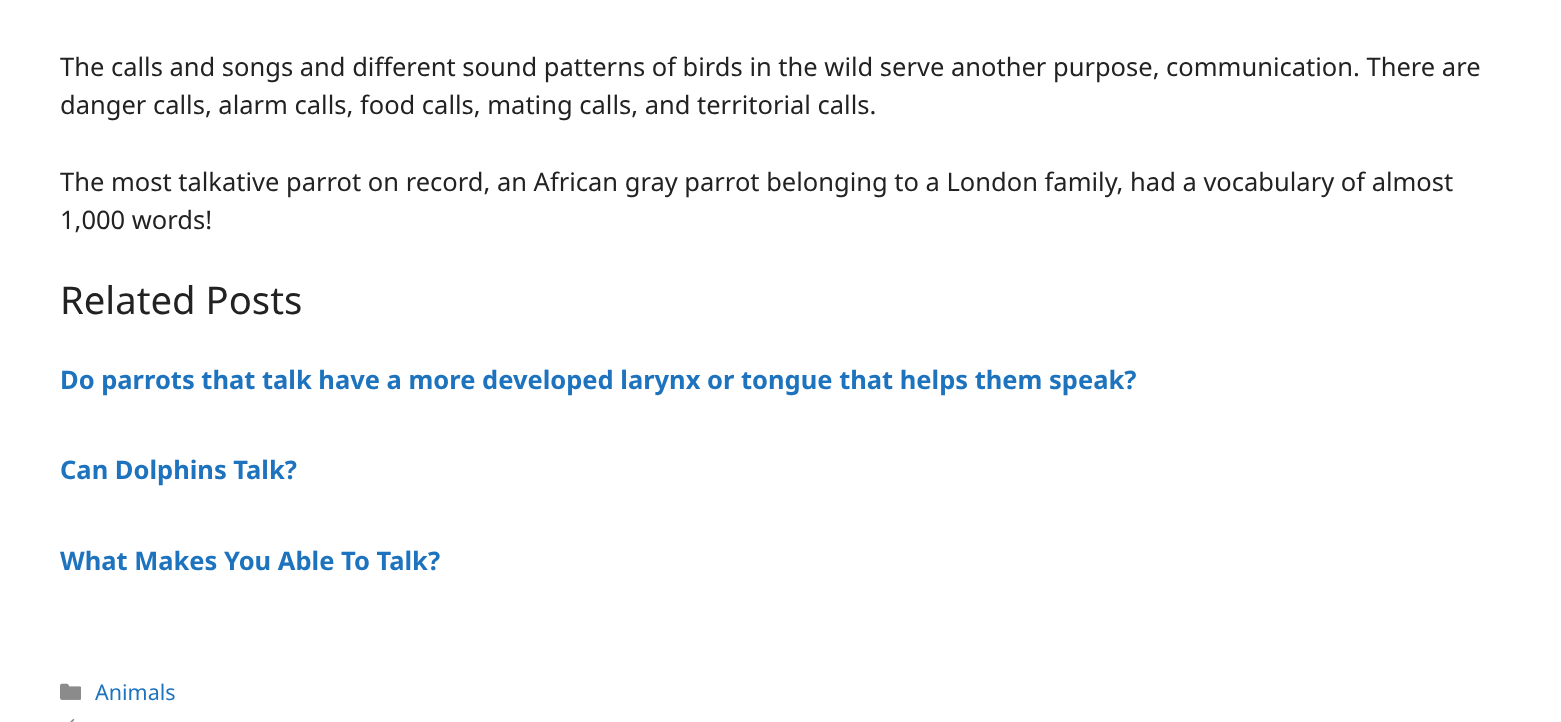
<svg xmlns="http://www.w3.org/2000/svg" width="1561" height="722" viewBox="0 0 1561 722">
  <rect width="100%" height="100%" fill="#fff"/>
  <image x="60" y="683" width="21" height="17" href="img/1.png"/>
  <image x="70" y="718" width="5" height="4" href="img/2.png"/>
  <g font-family="Noto Sans" font-size="25.5" fill="#222">
    <text x="60" y="76">The calls and songs and different sound patterns of birds in the wild serve another purpose, communication. There are</text>
    <text x="60" y="114">danger calls, alarm calls, food calls, mating calls, and territorial calls.</text>
    <text x="60" y="191">The most talkative parrot on record, an African gray parrot belonging to a London family, had a vocabulary of almost</text>
    <text x="60" y="229">1,000 words!</text>
  </g>
  <text x="60" y="314" font-family="Noto Sans" font-size="38.25" fill="#222">Related Posts</text>
  <g font-family="Noto Sans" font-size="25.5" font-weight="bold" fill="#1e73be">
    <text x="60" y="389">Do parrots that talk have a more developed larynx or tongue that helps them speak?</text>
    <text x="60" y="479">Can Dolphins Talk?</text>
    <text x="60" y="570">What Makes You Able To Talk?</text>
  </g>
  <text x="95" y="700" font-family="Noto Sans" font-size="21.5" fill="#1e73be">Animals</text>
</svg>
